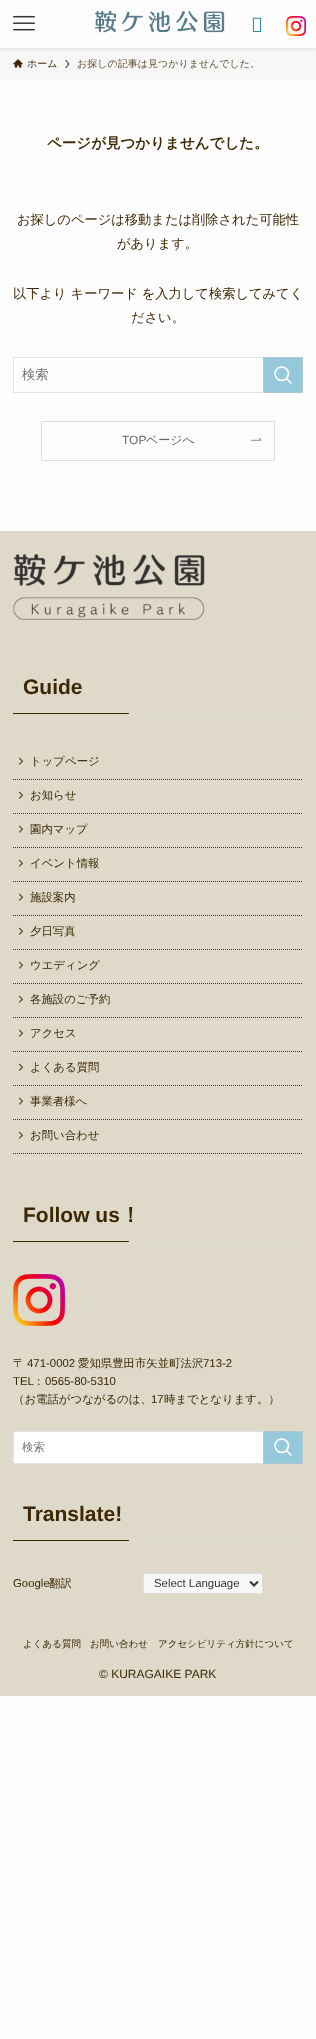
<svg xmlns="http://www.w3.org/2000/svg" width="316" height="2039" viewBox="0 0 316 2039">
  <defs>
    <clipPath id="clip1"><path d="M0 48h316v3H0z"/></clipPath>
  </defs>
  <rect width="100%" height="100%" fill="#fdfdfd"/>
  <path d="M0 48h316v32H0z" fill="#f7f7f7"/>
  <g clip-path="url(#clip1)">
    <path d="M0 1h316v48H0z" fill="#0000001f" filter="blur(2px)"/>
  </g>
  <image x="13" y="15" width="22" height="16" href="img/1.png"/>
  <image x="94" y="10" width="131" height="23" href="img/2.png"/>
  <image x="252" y="17" width="10" height="15" href="img/3.png"/>
  <image x="286" y="16" width="20" height="20" href="img/4.png"/>
  <image x="13" y="59" width="10" height="9" href="img/5.png"/>
  <path d="M66.5 60H65L68 64L65 68H66.5L69.5 64Z" fill="#625135"/>
  <path d="M13.5 357.5h289v35H13.5z" fill="none" stroke="#e3e3e3"/>
  <path d="M263.5 357.5h39v35H263.5z" fill="#95c8da" stroke="#aec8d1"/>
  <image x="274" y="366" width="18" height="18" href="img/6.png"/>
  <path d="M41.5 421.5h233v39H41.5z" fill="none" stroke="#dcdcdc"/>
  <image x="251" y="437" width="11" height="4" href="img/7.png"/>
  <path d="M0 531h316v1165H0z" fill="#ded9c8"/>
  <image x="13" y="553" width="192" height="67" href="img/8.png"/>
  <path d="M13 713h116v1H13z" fill="#3d2a06"/>
  <path d="M129 713h174v1H129z" fill="#ddd"/>
  <path d="M13 779.5H303" fill="none" stroke="#333" stroke-dasharray="1 1"/>
  <image x="19" y="757" width="4" height="8" href="img/9.png"/>
  <path d="M13 813.5H303" fill="none" stroke="#333" stroke-dasharray="1 1"/>
  <image x="19" y="791" width="4" height="8" href="img/9.png"/>
  <path d="M13 847.5H303" fill="none" stroke="#333" stroke-dasharray="1 1"/>
  <image x="19" y="825" width="4" height="8" href="img/9.png"/>
  <path d="M13 881.5H303" fill="none" stroke="#333" stroke-dasharray="1 1"/>
  <image x="19" y="859" width="4" height="8" href="img/9.png"/>
  <path d="M13 915.5H303" fill="none" stroke="#333" stroke-dasharray="1 1"/>
  <image x="19" y="893" width="4" height="8" href="img/9.png"/>
  <path d="M13 949.5H303" fill="none" stroke="#333" stroke-dasharray="1 1"/>
  <image x="19" y="927" width="4" height="8" href="img/9.png"/>
  <path d="M13 983.5H303" fill="none" stroke="#333" stroke-dasharray="1 1"/>
  <image x="19" y="961" width="4" height="8" href="img/9.png"/>
  <path d="M13 1017.5H303" fill="none" stroke="#333" stroke-dasharray="1 1"/>
  <image x="19" y="995" width="4" height="8" href="img/9.png"/>
  <path d="M13 1051.5H303" fill="none" stroke="#333" stroke-dasharray="1 1"/>
  <image x="19" y="1029" width="4" height="8" href="img/9.png"/>
  <path d="M13 1085.5H303" fill="none" stroke="#333" stroke-dasharray="1 1"/>
  <image x="19" y="1063" width="4" height="8" href="img/9.png"/>
  <path d="M13 1119.5H303" fill="none" stroke="#333" stroke-dasharray="1 1"/>
  <image x="19" y="1097" width="4" height="8" href="img/9.png"/>
  <path d="M13 1153.5H303" fill="none" stroke="#333" stroke-dasharray="1 1"/>
  <image x="19" y="1131" width="4" height="8" href="img/9.png"/>
  <path d="M13 1241h116v1H13z" fill="#3d2a06"/>
  <path d="M129 1241h174v1H129z" fill="#ddd"/>
  <image x="13" y="1274" width="52" height="52" href="img/10.png"/>
  <path d="M14 1432h249v31H14z" fill="#fff"/>
  <path d="M13.5 1431.5h289v32H13.5z" fill="none" stroke="#e3e3e3"/>
  <path d="M263.5 1431.5h39v32H263.5z" fill="#95c8da" stroke="#aec8d1"/>
  <image x="274" y="1438" width="18" height="18" href="img/6.png"/>
  <path d="M13 1540h116v1H13z" fill="#3d2a06"/>
  <path d="M129 1540h174v1H129z" fill="#ddd"/>
  <path d="M143.5 1573.5h119v20H143.5z" fill="#f7f7f7" stroke="#dfdfdf"/>
  <path d="M250 1581.5L254 1585.5L258 1581.5" fill="none" stroke="#333" stroke-width="2"/>
  <text x="27" y="67" font-family="WenQuanYi Zen Hei" font-size="10" font-weight="500" fill="#3d2805">ホーム</text>
  <text x="77" y="67" font-family="WenQuanYi Zen Hei" font-size="10" font-weight="500" fill="#625135">お探しの記事は見つかりませんでした。</text>
  <text x="47" y="148" font-family="WenQuanYi Zen Hei" font-size="14.5" font-weight="bold" fill="#3d2805">ページが見つかりませんでした。</text>
  <g font-family="WenQuanYi Zen Hei" font-size="13.25" font-weight="500" fill="#3d2805">
    <text x="17" y="224">お探しのページは移動または削除された可能性</text>
    <text x="117" y="248">があります。</text>
    <text x="13" y="298">以下より キーワード を入力して検索してみてく</text>
    <text x="131" y="322">ださい。</text>
  </g>
  <text x="22" y="379" font-family="WenQuanYi Zen Hei" font-size="13.25" font-weight="500" fill="#757575">検索</text>
  <text x="122" y="444" font-family="Liberation Sans" font-size="12" fill="#666">TOP</text>
  <text x="146" y="444" font-family="WenQuanYi Zen Hei" font-size="12" font-weight="500" fill="#666">ページへ</text>
  <text x="23" y="694" font-family="Liberation Sans" font-size="21" font-weight="bold" fill="#3d2805">Guide</text>
  <g font-family="WenQuanYi Zen Hei" font-size="11.4" font-weight="500" fill="#3d2805">
    <text x="30" y="765">トップページ</text>
    <text x="30" y="799">お知らせ</text>
    <text x="30" y="833">園内マップ</text>
    <text x="30" y="867">イベント情報</text>
    <text x="30" y="901">施設案内</text>
    <text x="30" y="935">夕日写真</text>
    <text x="30" y="969">ウエディング</text>
    <text x="30" y="1003">各施設のご予約</text>
    <text x="30" y="1037">アクセス</text>
    <text x="30" y="1071">よくある質問</text>
    <text x="30" y="1105">事業者様へ</text>
    <text x="30" y="1139">お問い合わせ</text>
  </g>
  <text x="23" y="1222" font-family="Liberation Sans" font-size="21" font-weight="bold" fill="#3d2805">Follow us</text>
  <text x="120" y="1222" font-family="WenQuanYi Zen Hei" font-size="21" font-weight="bold" fill="#3d2805">！</text>
  <text x="13" y="1367" font-family="WenQuanYi Zen Hei" font-size="11.4" font-weight="500" fill="#3d2805">〒</text>
  <text x="27" y="1367" font-family="Liberation Sans" font-size="11.4" fill="#3d2805">471-0002</text>
  <text x="78" y="1367" font-family="WenQuanYi Zen Hei" font-size="11.4" font-weight="500" fill="#3d2805">愛知県豊田市矢並町法沢</text>
  <g font-family="Liberation Sans" font-size="11.4" fill="#3d2805">
    <text x="203" y="1367">713-2</text>
    <text x="13" y="1385">TEL</text>
  </g>
  <text x="33" y="1385" font-family="WenQuanYi Zen Hei" font-size="11.4" font-weight="500" fill="#3d2805">：</text>
  <text x="45" y="1385" font-family="Liberation Sans" font-size="11.4" fill="#3d2805">0565-80-5310</text>
  <text x="13" y="1403" font-family="WenQuanYi Zen Hei" font-size="11.4" font-weight="500" fill="#3d2805">（お電話がつながるのは、</text>
  <text x="151" y="1403" font-family="Liberation Sans" font-size="11.4" fill="#3d2805">17</text>
  <text x="164" y="1403" font-family="WenQuanYi Zen Hei" font-size="11.4" font-weight="500" fill="#3d2805">時までとなります。）</text>
  <text x="22" y="1451" font-family="WenQuanYi Zen Hei" font-size="11.4" font-weight="500" fill="#757575">検索</text>
  <text x="23" y="1521" font-family="Liberation Sans" font-size="21" font-weight="bold" fill="#3d2805">Translate!</text>
  <text x="13" y="1587" font-family="Liberation Sans" font-size="11.4" fill="#3d2805">Google</text>
  <text x="49" y="1587" font-family="WenQuanYi Zen Hei" font-size="11.4" font-weight="500" fill="#3d2805">翻訳</text>
  <text x="154" y="1587" font-family="Liberation Sans" font-size="11.4" fill="#333">Select Language</text>
  <g font-family="WenQuanYi Zen Hei" font-size="9.5" font-weight="500" fill="#3d2805">
    <text x="23" y="1647">よくある質問</text>
    <text x="90" y="1647">お問い合わせ</text>
    <text x="158" y="1647">アクセシビリティ方針について</text>
  </g>
  <text x="99" y="1678" font-family="Liberation Sans" font-size="12" fill="#3d2805">© KURAGAIKE PARK</text>
</svg>
